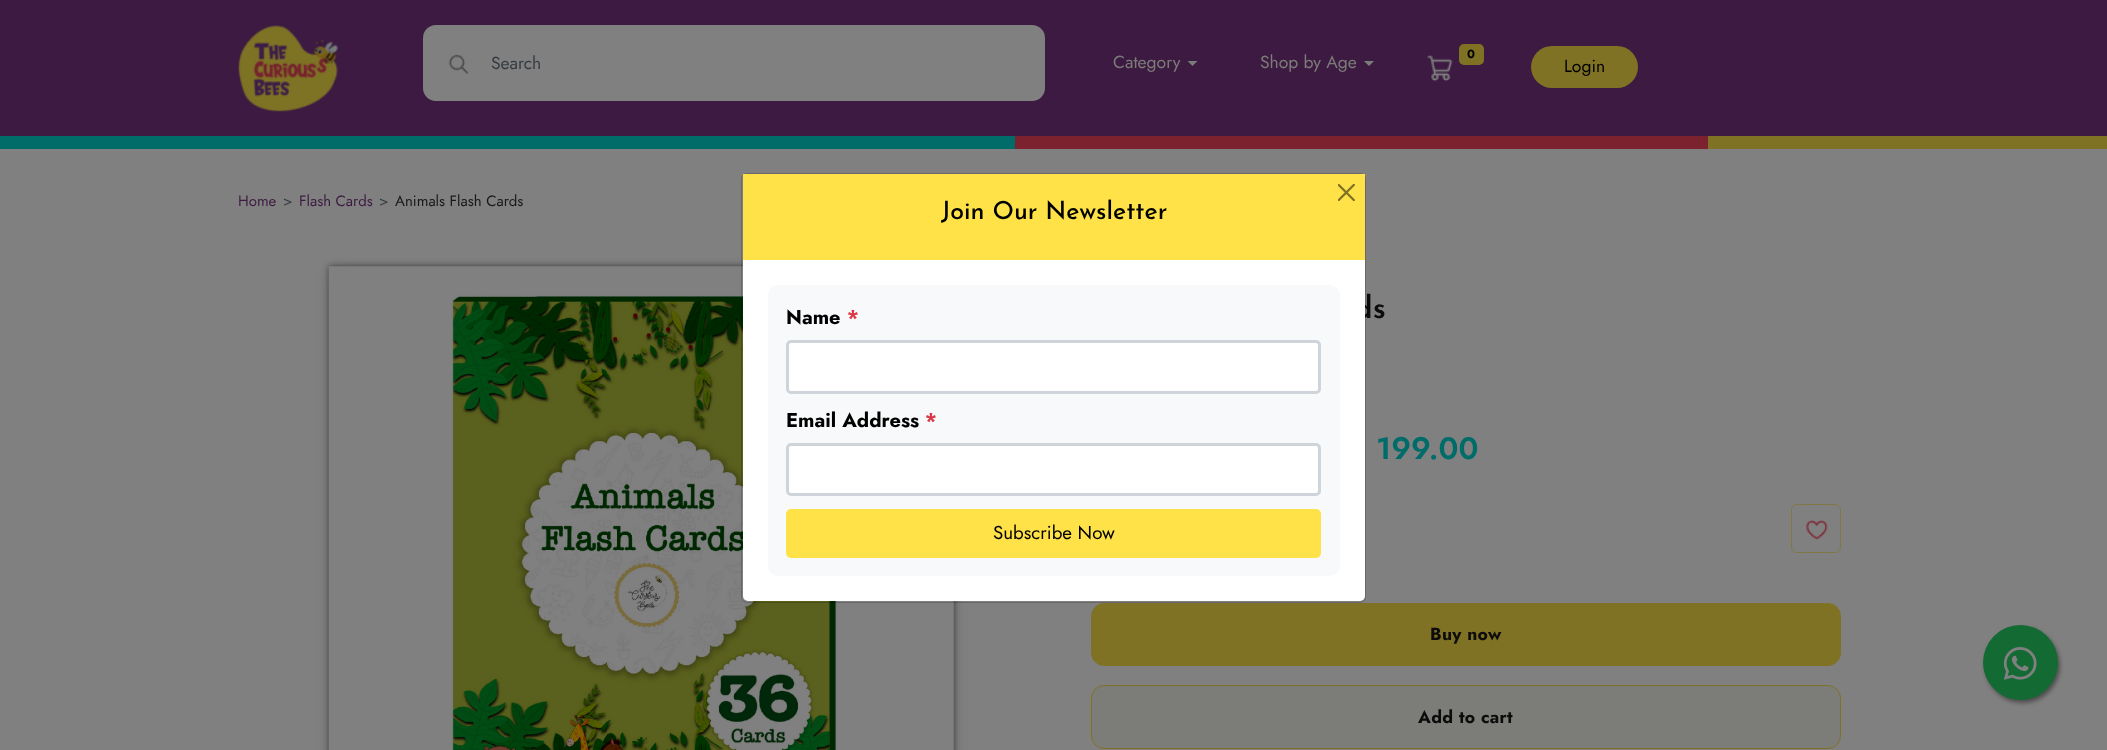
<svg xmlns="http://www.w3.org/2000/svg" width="2107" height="750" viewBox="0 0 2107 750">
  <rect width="100%" height="100%" fill="#808080"/>
  <path d="M0 0h2107v136H0z" fill="#3d1a42"/>
  <image x="238" y="25" width="101" height="87" href="img/1.png"/>
  <rect x="423" y="25" width="622" height="76" rx="13" fill="#808080"/>
  <image x="448" y="54" width="21" height="20" href="img/2.png"/>
  <path d="M1187.5 61H1197.5L1192.5 66Z" fill="#7c7c78"/>
  <path d="M1364 61H1374L1369 66Z" fill="#7c7c78"/>
  <rect x="1459" y="44" width="25" height="21" rx="5" fill="#807224"/>
  <image x="1427" y="55" width="26" height="27" href="img/3.png"/>
  <rect x="1531" y="46" width="107" height="42" rx="21" fill="#807224"/>
  <path d="M0 136h1015v13H0z" fill="#006c69"/>
  <path d="M1015 136h693v13H1015z" fill="#7c212e"/>
  <path d="M1708 136h399v13H1708z" fill="#807224"/>
  <rect x="329" y="271" width="625" height="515" rx="13" fill="#0000001a" filter="blur(7.5px)"/>
  <path d="M329 266h625v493H329z" fill="#00000080" filter="blur(3px)"/>
  <image x="328" y="266" width="626" height="484" href="img/5.png"/>
  <rect x="1791.5" y="504.5" width="49" height="48" rx="5.5" fill="none" stroke="#807745"/>
  <image x="1806" y="520" width="22" height="20" href="img/6.png"/>
  <rect x="1091.5" y="603.5" width="749" height="62" rx="12.5" fill="#807224" stroke="#807224"/>
  <rect x="1091.5" y="685.5" width="749" height="63" rx="12.5" fill="#7c7c78" stroke="#807224"/>
  <rect x="1985" y="628" width="75" height="75" rx="37.5" fill="#4d4d4d" filter="blur(2px)"/>
  <circle cx="2020.5" cy="662.5" r="37.5" fill="#136a33"/>
  <image x="2003" y="647" width="34" height="33" href="img/7.png"/>
  <text x="491" y="69" font-family="Jost" font-size="17.5" fill="#363b3f">Search</text>
  <g font-family="Jost" font-size="17.5" fill="#7c7c78">
    <text x="1113" y="68">Category</text>
    <text x="1260" y="68">Shop by Age</text>
  </g>
  <text x="1467" y="58" font-family="Jost" font-size="12" font-weight="bold" fill="#000">0</text>
  <text x="1564" y="72" font-family="Jost" font-size="17.5" fill="#000">Login</text>
  <text x="238" y="206" font-family="Jost" font-size="15" fill="#3d1a42">Home</text>
  <text x="283" y="206" font-family="Jost" font-size="15" fill="#363b3f">&gt;</text>
  <text x="299" y="206" font-family="Jost" font-size="15" fill="#3d1a42">Flash Cards</text>
  <text x="379" y="206" font-family="Jost" font-size="15" fill="#363b3f">&gt;</text>
  <text x="395" y="206" font-family="Jost" font-size="15" fill="#181818">Animals Flash Cards</text>
  <text x="1354" y="318" font-family="Josefin Sans" font-size="31" font-weight="600" fill="#0c0c0c">ds</text>
  <rect x="743" y="174" width="622" height="427" rx="5" fill="#fff"/>
  <rect x="741.5" y="173.5" width="624" height="429" rx="5.5" fill="none" stroke="#0000002e"/>
  <path d="M743 174h622v86H743z" fill="#fee247"/>
  <image x="1338" y="184" width="17" height="17" href="img/4.png"/>
  <rect x="768" y="285" width="572" height="291" rx="10" fill="#f8f9fa"/>
  <rect x="786" y="509" width="535" height="49" rx="5" fill="#fee247"/>
  <text x="993" y="539" font-family="Jost" font-size="18.75" fill="#000">Subscribe Now</text>
  <rect x="787.5" y="444.5" width="532" height="50" rx="3.5" fill="#fff" stroke="#ced4da" stroke-width="3"/>
  <text x="925" y="427" font-family="Jost" font-size="20" font-weight="bold" fill="#dc3545">*</text>
  <text x="786" y="427" font-family="Jost" font-size="20" font-weight="bold" fill="#000">Email Address</text>
  <rect x="787.5" y="341.5" width="532" height="51" rx="3.5" fill="#fff" stroke="#ced4da" stroke-width="3"/>
  <text x="847" y="324" font-family="Jost" font-size="20" font-weight="bold" fill="#dc3545">*</text>
  <text x="786" y="324" font-family="Jost" font-size="20" font-weight="bold" fill="#000">Name</text>
  <text x="941" y="219" font-family="Josefin Sans" font-size="25" font-weight="500" fill="#000">Join Our Newsletter</text>
  <text x="1376" y="459" font-family="Jost" font-size="31" font-weight="600" fill="#006c69">199.00</text>
  <g font-family="Jost" font-size="17.5" font-weight="bold" letter-spacing="0.3" fill="#0c0c0c">
    <text x="1430" y="640">Buy now</text>
    <text x="1418" y="723">Add to cart</text>
  </g>
</svg>
